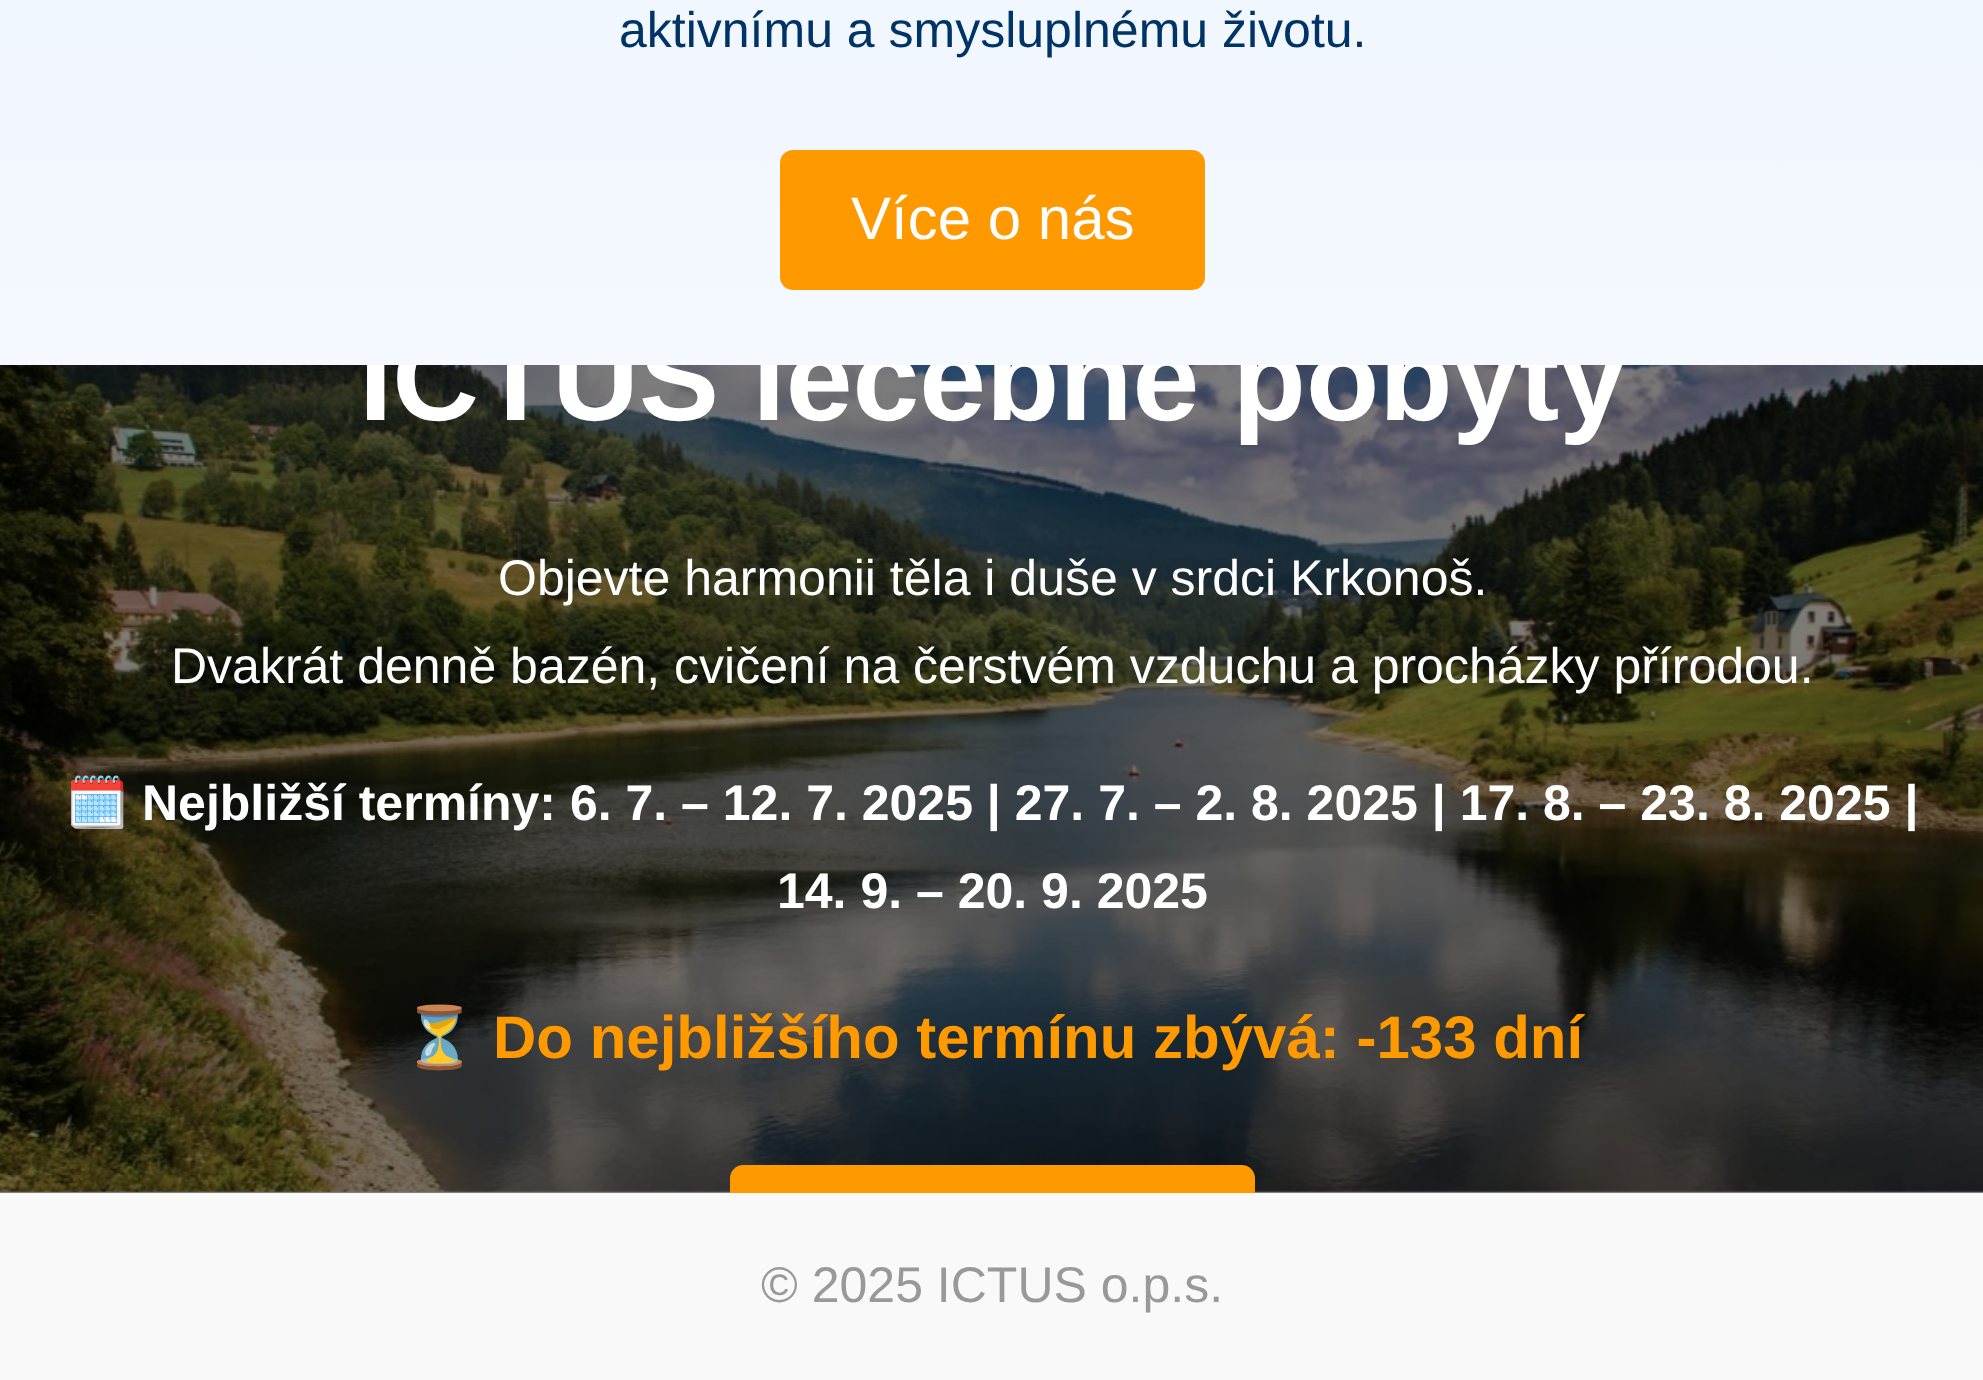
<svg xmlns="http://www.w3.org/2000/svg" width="1983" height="1380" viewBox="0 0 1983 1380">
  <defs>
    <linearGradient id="g1" gradientUnits="userSpaceOnUse" x1="992" y1="-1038" x2="993" y2="1380"><stop offset="0" stop-color="#e6f0ff"/><stop offset="1" stop-color="#fff"/></linearGradient>
    <linearGradient id="g2" gradientUnits="userSpaceOnUse" x1="992" y1="-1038" x2="993" y2="1380"><stop offset="0" stop-color="#737880"/><stop offset="1" stop-color="#808080"/></linearGradient>
    <clipPath id="clip1"><path d="M0 365h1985v828H0z"/></clipPath>
  </defs>
  <rect width="100%" height="100%" fill="#fff"/>
  <path d="M0 0h1983v365H0z" fill="url(#g1)"/>
  <path d="M0 1190h1983v3H0z" fill="url(#g2)"/>
  <rect x="780" y="150" width="425" height="140" rx="13" fill="#f90"/>
  <image x="0" y="365" width="1983" height="827" href="img/1.png"/>
  <path d="M743 1165H1242C1249 1165 1255 1171 1255 1178V1193H730V1178C730 1171 736 1165 743 1165Z" fill="#f90"/>
  <path d="M0 1193h1983v187H0z" fill="#f9f9f9"/>
  <text x="619" y="47" font-family="Liberation Sans" font-size="50" fill="#036">aktivnímu a smysluplnému životu.</text>
  <text x="851" y="239" font-family="Liberation Sans" font-size="60" fill="#fff">Více o nás</text>
  <g clip-path="url(#clip1)">
    <text x="359" y="420" font-family="Liberation Sans" font-size="120" font-weight="bold" fill="#fff">ICTUS léčebné pobyty</text>
  </g>
  <g font-family="Liberation Sans" font-size="50" fill="#fff">
    <text x="498" y="595">Objevte harmonii těla i duše v srdci Krkonoš.</text>
    <text x="171" y="683">Dvakrát denně bazén, cvičení na čerstvém vzduchu a procházky přírodou.</text>
  </g>
  <text x="66" y="820" font-family="Noto Color Emoji" font-size="50" font-weight="bold" fill="#fff">🗓️</text>
  <g font-family="Liberation Sans" font-size="50" font-weight="bold" fill="#fff">
    <text x="142" y="820">Nejbližší termíny: 6. 7. – 12. 7. 2025 | 27. 7. – 2. 8. 2025 | 17. 8. – 23. 8. 2025 |</text>
    <text x="777" y="908">14. 9. – 20. 9. 2025</text>
  </g>
  <text x="402" y="1058" font-family="Noto Color Emoji" font-size="60" font-weight="bold" fill="#f90">⏳</text>
  <text x="493" y="1058" font-family="Liberation Sans" font-size="60" font-weight="bold" fill="#f90">Do nejbližšího termínu zbývá: -133 dní</text>
  <text x="761" y="1302" font-family="Liberation Sans" font-size="50" fill="#999">© 2025 ICTUS o.p.s.</text>
</svg>
